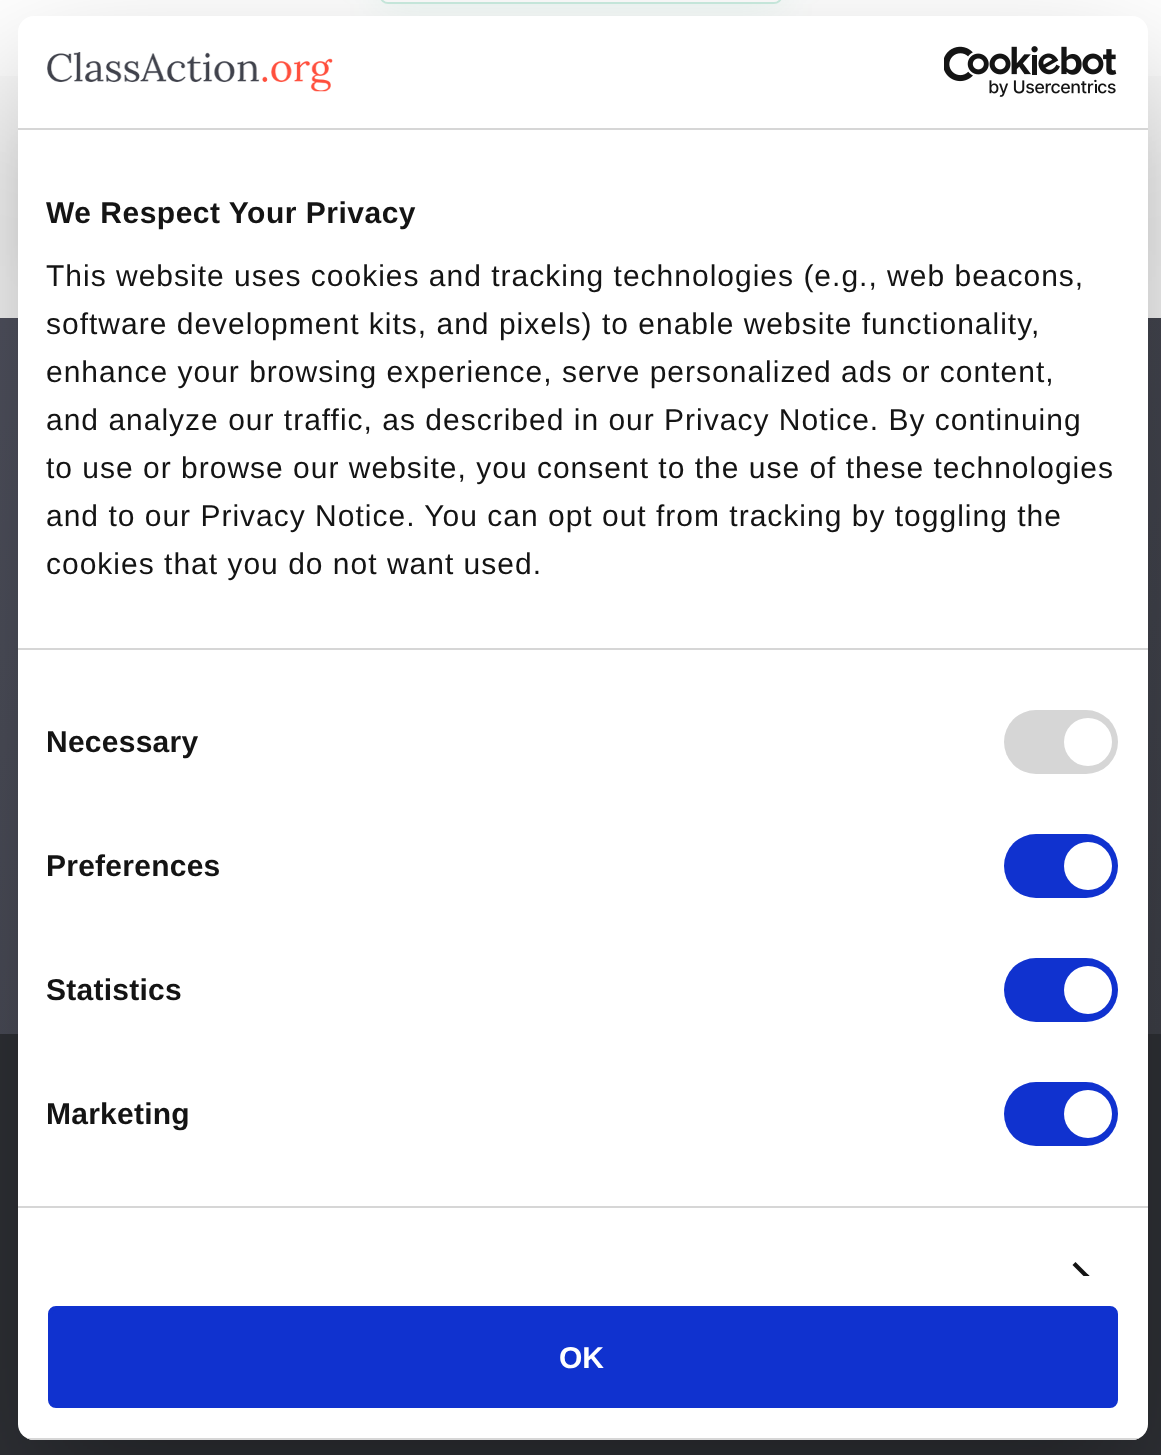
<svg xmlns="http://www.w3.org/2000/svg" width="1161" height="1455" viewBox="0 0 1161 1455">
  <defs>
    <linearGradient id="g1" gradientUnits="userSpaceOnUse" x1="73" y1="234" x2="1089" y2="1118"><stop offset="0" stop-color="#515360"/><stop offset="1" stop-color="#3e4048"/></linearGradient>
    <clipPath id="clip1"><path d="M18 130h1130v1146H18z"/></clipPath>
    <clipPath id="clip2"><rect x="18" y="16" width="1130" height="1424" rx="16"/></clipPath>
  </defs>
  <rect width="100%" height="100%" fill="#fff"/>
  <rect x="380" y="-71" width="402" height="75" rx="8" fill="#00ab6b17" filter="blur(21px)"/>
  <rect x="381" y="-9" width="400" height="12" rx="7" fill="#fff" stroke="#cceee1" stroke-width="2"/>
  <path d="M0 76h1161v242H0z" fill="#fbfbfb"/>
  <path d="M32 152h1098v114H32z" fill="#18181821" filter="blur(16px)"/>
  <path d="M0 318h1161v716H0z" fill="url(#g1)"/>
  <path d="M0 1034h1161v421H0z" fill="#2f3136"/>
  <rect x="18" y="80" width="1130" height="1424" rx="16" fill="#0000004d" filter="blur(68px)"/>
  <rect x="18" y="16" width="1130" height="1424" rx="16" fill="#fff"/>
  <path d="M18 128h1130v2H18z" fill="#d6d6d6"/>
  <image x="47" y="52" width="286" height="40" href="img/1.png"/>
  <image x="944" y="46" width="173" height="51" href="img/2.png"/>
  <path d="M18 648h1130v2H18z" fill="#d6d6d6"/>
  <path d="M18 1206h1130v2H18z" fill="#d6d6d6"/>
  <rect x="1004" y="710" width="114" height="64" rx="32" fill="#d6d6d6"/>
  <circle cx="1088" cy="742" r="24" fill="#fff"/>
  <rect x="1004" y="834" width="114" height="64" rx="32" fill="#1032cf"/>
  <circle cx="1088" cy="866" r="24" fill="#fff"/>
  <rect x="1004" y="958" width="114" height="64" rx="32" fill="#1032cf"/>
  <circle cx="1088" cy="990" r="24" fill="#fff"/>
  <rect x="1004" y="1082" width="114" height="64" rx="32" fill="#1032cf"/>
  <circle cx="1088" cy="1114" r="24" fill="#fff"/>
  <g clip-path="url(#clip1)">
    <path d="M1075.5 1262L1090.5 1277L1087.5 1280L1072.5 1265Z" fill="#141414"/>
    <path d="M1087.5 1274L1090.5 1277L1075.5 1292L1072.5 1289Z" fill="#141414"/>
  </g>
  <g clip-path="url(#clip2)">
    <path d="M18 1438h1130v2H18z" fill="#d6d6d6"/>
  </g>
  <rect x="50" y="1308" width="1066" height="98" rx="6" fill="#1032cf" stroke="#1032cf" stroke-width="4"/>
  <text x="46" y="223" font-family="Liberation Sans" font-size="30" font-weight="bold" letter-spacing="0.5" fill="#141414">We Respect Your Privacy</text>
  <g font-family="Liberation Sans" font-size="30" letter-spacing="1" fill="#141414">
    <text x="46" y="286">This website uses cookies and tracking technologies (e.g., web beacons,</text>
    <text x="46" y="334">software development kits, and pixels) to enable website functionality,</text>
    <text x="46" y="382">enhance your browsing experience, serve personalized ads or content,</text>
    <text x="46" y="430">and analyze our traffic, as described in our Privacy Notice. By continuing</text>
    <text x="46" y="478">to use or browse our website, you consent to the use of these technologies</text>
    <text x="46" y="526">and to our Privacy Notice. You can opt out from tracking by toggling the</text>
    <text x="46" y="574">cookies that you do not want used.</text>
  </g>
  <g font-family="Liberation Sans" font-size="30" font-weight="bold" letter-spacing="0.25" fill="#141414">
    <text x="46" y="752">Necessary</text>
    <text x="46" y="876">Preferences</text>
    <text x="46" y="1000">Statistics</text>
    <text x="46" y="1124">Marketing</text>
  </g>
  <text x="559" y="1368" font-family="Liberation Sans" font-size="30" font-weight="bold" fill="#fff">OK</text>
</svg>
